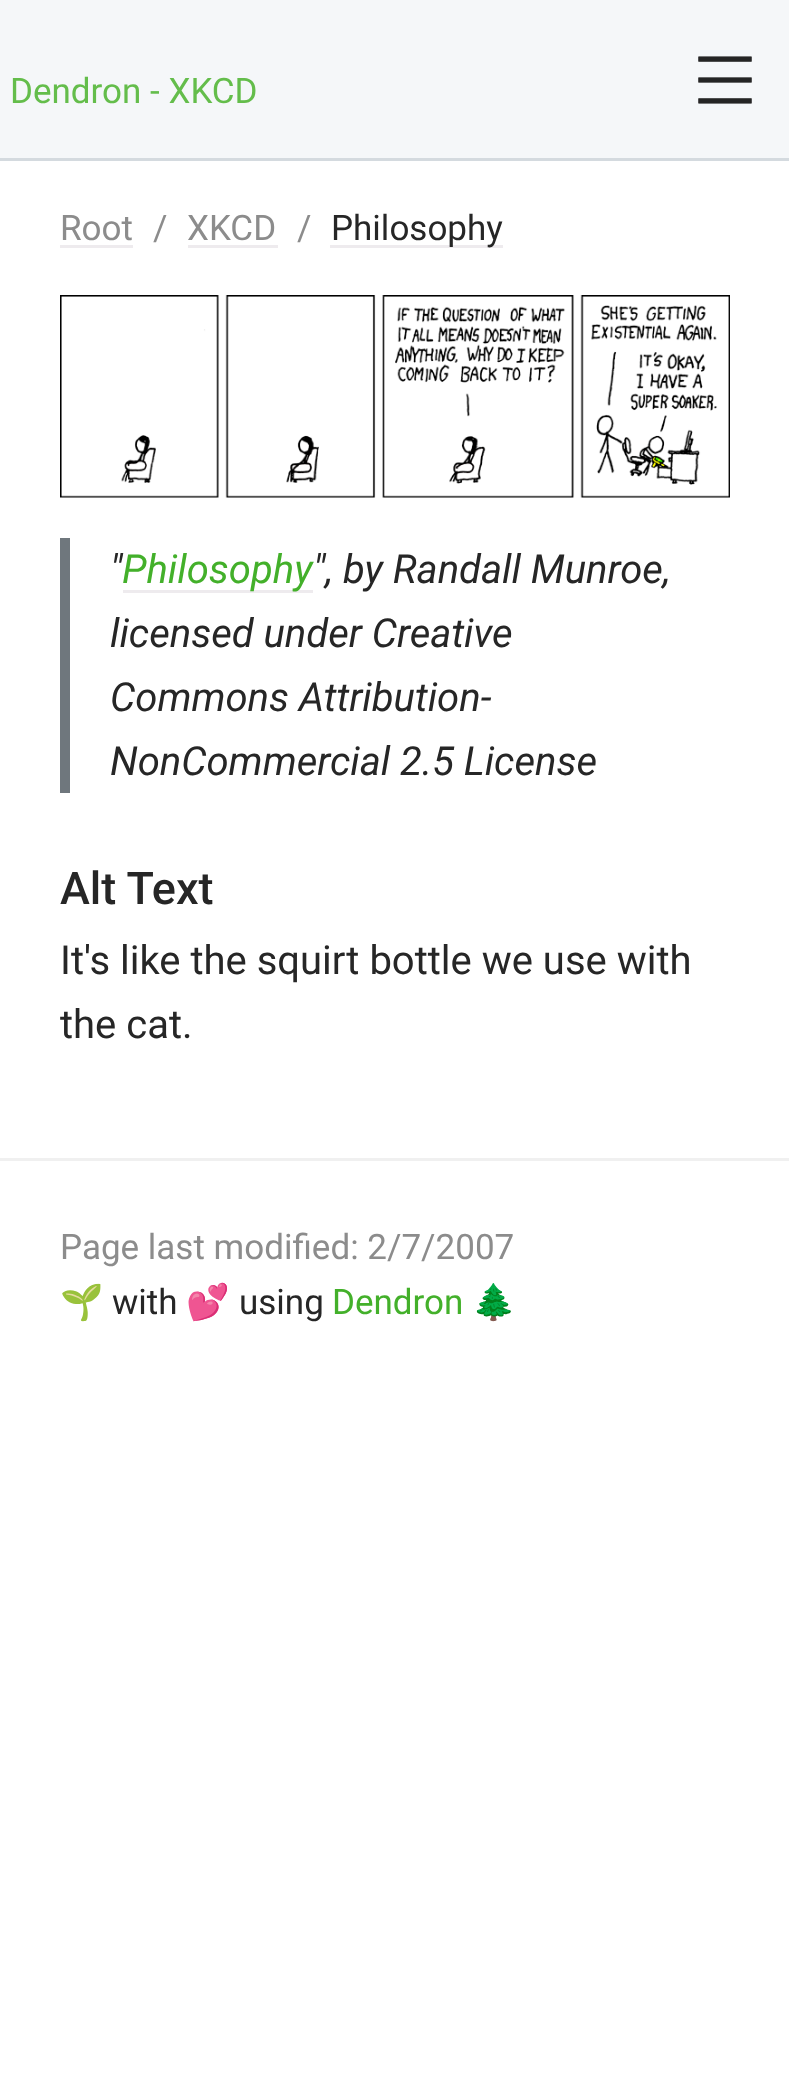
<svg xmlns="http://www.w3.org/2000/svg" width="789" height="2088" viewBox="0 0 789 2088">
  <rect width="100%" height="100%" fill="#fff"/>
  <path d="M0 0h789v158H0z" fill="#f5f7f9"/>
  <path d="M0 158h789v3H0z" fill="#d4dadf"/>
  <image x="698" y="56" width="54" height="48" href="img/1.png"/>
  <path d="M60 245h73v3H60z" fill="#eeebee"/>
  <path d="M188 245h90v3H188z" fill="#eeebee"/>
  <path d="M330 245h173v3H330z" fill="#eeebee"/>
  <image x="60" y="295" width="670" height="203" href="img/2.png"/>
  <path d="M60 538h10v255H60z" fill="#6f777d"/>
  <path d="M123 590h190v3H123z" fill="#eeebee"/>
  <path d="M0 1158h789v3H0z" fill="#f0f0f0"/>
  <text x="10" y="103" font-family="Roboto" font-size="35" fill="#64bd4b">Dendron - XKCD</text>
  <g font-family="Roboto" font-size="35" fill="#8c8c8c">
    <text x="60" y="240">Root</text>
    <text x="153" y="240">/</text>
    <text x="187" y="240">XKCD</text>
    <text x="297" y="240">/</text>
  </g>
  <text x="331" y="240" font-family="Roboto" font-size="35" fill="#262626">Philosophy</text>
  <text x="110" y="583" font-family="Roboto" font-size="40" font-style="italic" fill="#262626">"</text>
  <text x="122" y="583" font-family="Roboto" font-size="40" font-style="italic" fill="#43b02a">Philosophy</text>
  <g font-family="Roboto" font-size="40" font-style="italic" fill="#262626">
    <text x="313" y="583">", by Randall Munroe,</text>
    <text x="110" y="647">licensed under Creative</text>
    <text x="110" y="711">Commons Attribution-</text>
    <text x="110" y="775">NonCommercial 2.5 License</text>
  </g>
  <text x="60" y="904" font-family="Roboto" font-size="45" font-weight="500" fill="#262626">Alt Text</text>
  <g font-family="Roboto" font-size="40" fill="#262626">
    <text x="60" y="974">It's like the squirt bottle we use with</text>
    <text x="60" y="1038">the cat.</text>
  </g>
  <text x="60" y="1259" font-family="Roboto" font-size="35" fill="#8c8c8c">Page last modified: 2/7/2007</text>
  <text x="60" y="1314" font-family="Noto Color Emoji" font-size="35" fill="#262626">🌱</text>
  <text x="112" y="1314" font-family="Roboto" font-size="35" fill="#262626">with</text>
  <text x="186" y="1314" font-family="Noto Color Emoji" font-size="35" fill="#262626">💕</text>
  <text x="239" y="1314" font-family="Roboto" font-size="35" fill="#262626">using</text>
  <text x="332" y="1314" font-family="Roboto" font-size="35" fill="#43b02a">Dendron</text>
  <text x="472" y="1314" font-family="Noto Color Emoji" font-size="35" fill="#43b02a">🌲</text>
</svg>
